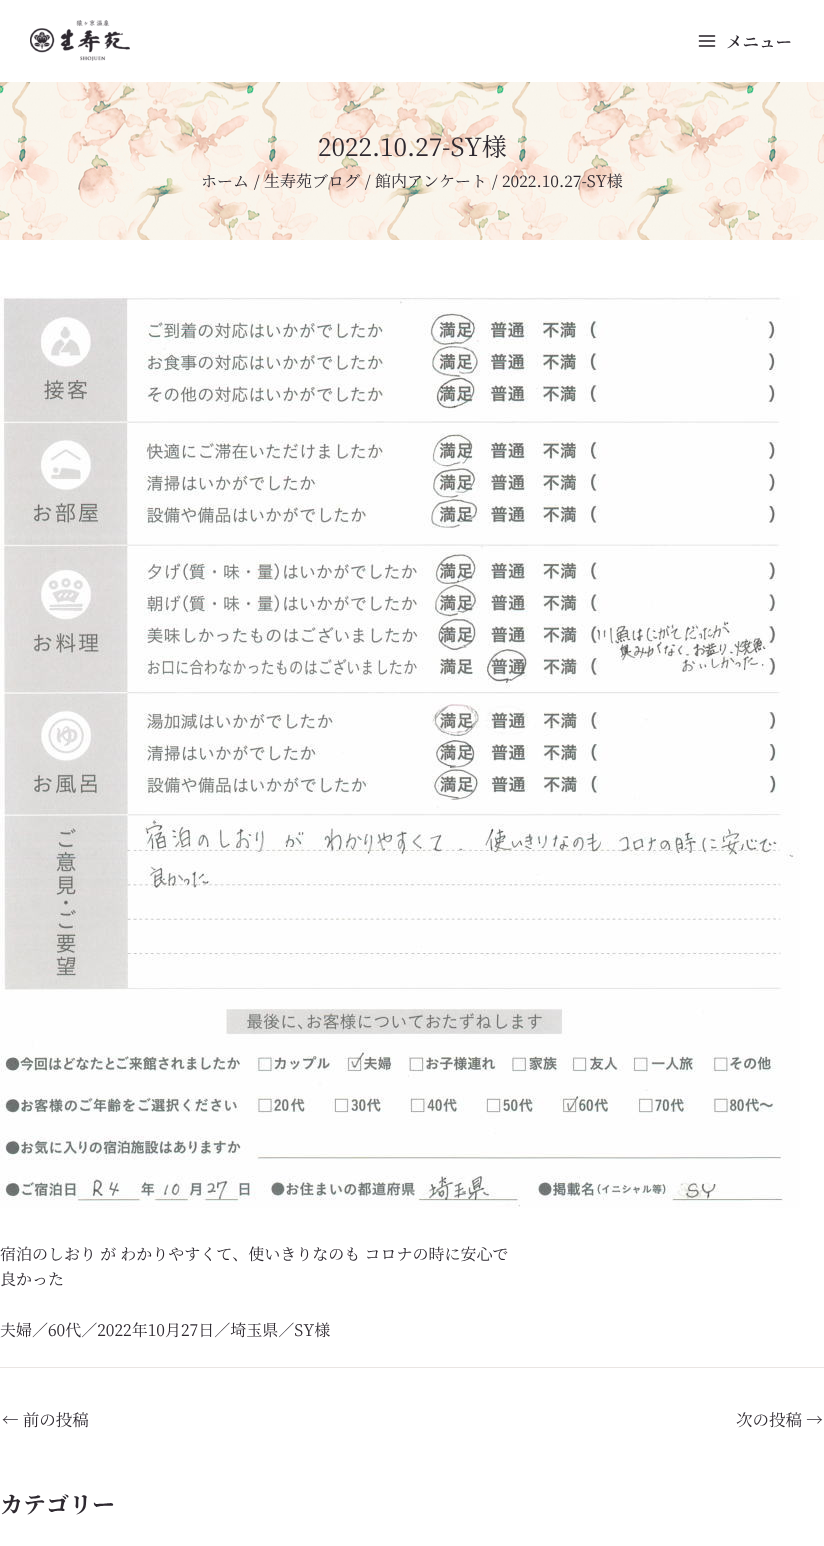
<svg xmlns="http://www.w3.org/2000/svg" width="824" height="1546" viewBox="0 0 824 1546">
  <style>*{font-kerning:none!important;font-variant-ligatures:none!important}</style>
  <rect width="100%" height="100%" fill="#fff"/>
  <image x="30" y="20" width="100" height="41" href="img/1.png"/>
  <image x="698" y="35" width="18" height="12" href="img/2.png"/>
  <image x="0" y="82" width="824" height="158" href="img/3.png"/>
  <image x="0" y="296" width="800" height="912" href="img/4.png"/>
  <path d="M0 1367h824v1H0z" fill="#eae5e3"/>
  <text x="726" y="48" font-family="Noto Serif JP" font-size="16.5" font-weight="600" fill="#2e2930">メニュー</text>
  <text x="318" y="156" font-family="Noto Serif JP" font-size="25" fill="#2e2930">2022.10.27-SY様</text>
  <g font-family="Noto Serif JP" font-size="16" fill="#2e2930">
    <text x="201" y="187">ホーム</text>
    <text x="254" y="187">/</text>
    <text x="264" y="187">生寿苑ブログ</text>
    <text x="365" y="187">/</text>
    <text x="375" y="187">館内アンケート</text>
    <text x="492" y="187">/</text>
    <text x="502" y="187">2022.10.27-SY様</text>
    <text x="0" y="1260">宿泊のしおり が わかりやすくて、使いきりなのも コロナの時に安心で</text>
    <text x="0" y="1285">良かった</text>
    <text x="0" y="1336">夫婦／60代／2022年10月27日／埼玉県／SY様</text>
  </g>
  <g font-family="Noto Serif JP" font-size="16.5" fill="#2e2930">
    <text x="2" y="1426">← 前の投稿</text>
    <text x="736" y="1426">次の投稿 →</text>
  </g>
  <text x="0" y="1513" font-family="Noto Serif JP" font-size="23" font-weight="bold" fill="#2e2930">カテゴリー</text>
</svg>
